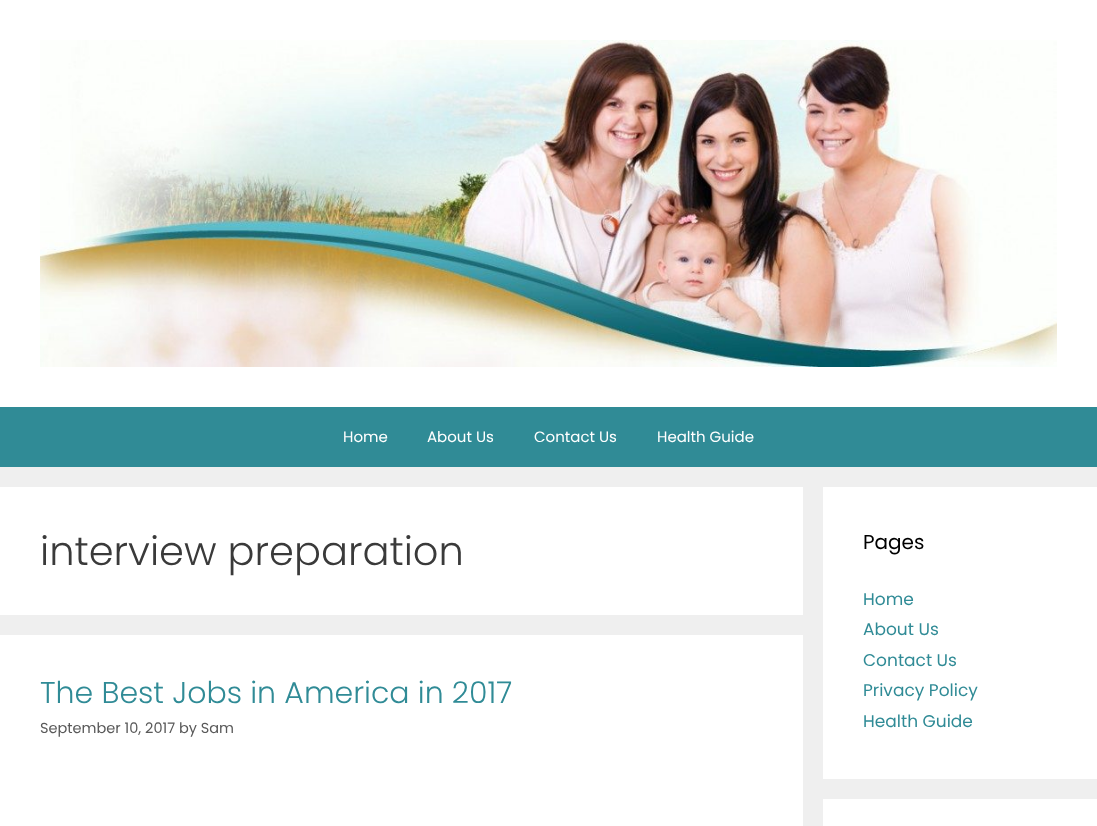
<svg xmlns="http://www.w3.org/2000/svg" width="1097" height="826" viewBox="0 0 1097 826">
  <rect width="100%" height="100%" fill="#efefef"/>
  <path d="M0 0h1097v407H0z" fill="#fff"/>
  <image x="40" y="40" width="1017" height="327" href="img/1.png"/>
  <path d="M0 407h1097v60H0z" fill="#308b96"/>
  <path d="M0 487h803v128H0z" fill="#fff"/>
  <path d="M0 635h803v191H0z" fill="#fff"/>
  <path d="M823 487h274v292H823z" fill="#fff"/>
  <path d="M823 799h274v27H823z" fill="#fff"/>
  <g font-family="Poppins" font-size="15" fill="#fff">
    <text x="343" y="442">Home</text>
    <text x="427" y="442">About Us</text>
    <text x="534" y="442">Contact Us</text>
    <text x="657" y="442">Health Guide</text>
  </g>
  <text x="40" y="565" font-family="Poppins" font-size="40" font-weight="300" fill="#3a3a3a">interview preparation</text>
  <text x="40" y="703" font-family="Poppins" font-size="30" font-weight="300" fill="#308b96">The Best Jobs in America in 2017</text>
  <text x="40" y="733" font-family="Poppins" font-size="14.5" fill="#595959">September 10, 2017 by Sam</text>
  <text x="863" y="549" font-family="Poppins" font-size="20" fill="#000">Pages</text>
  <g font-family="Poppins" font-size="17" fill="#308b96">
    <text x="863" y="605">Home</text>
    <text x="863" y="635">About Us</text>
    <text x="863" y="666">Contact Us</text>
    <text x="863" y="696">Privacy Policy</text>
    <text x="863" y="727">Health Guide</text>
  </g>
</svg>
